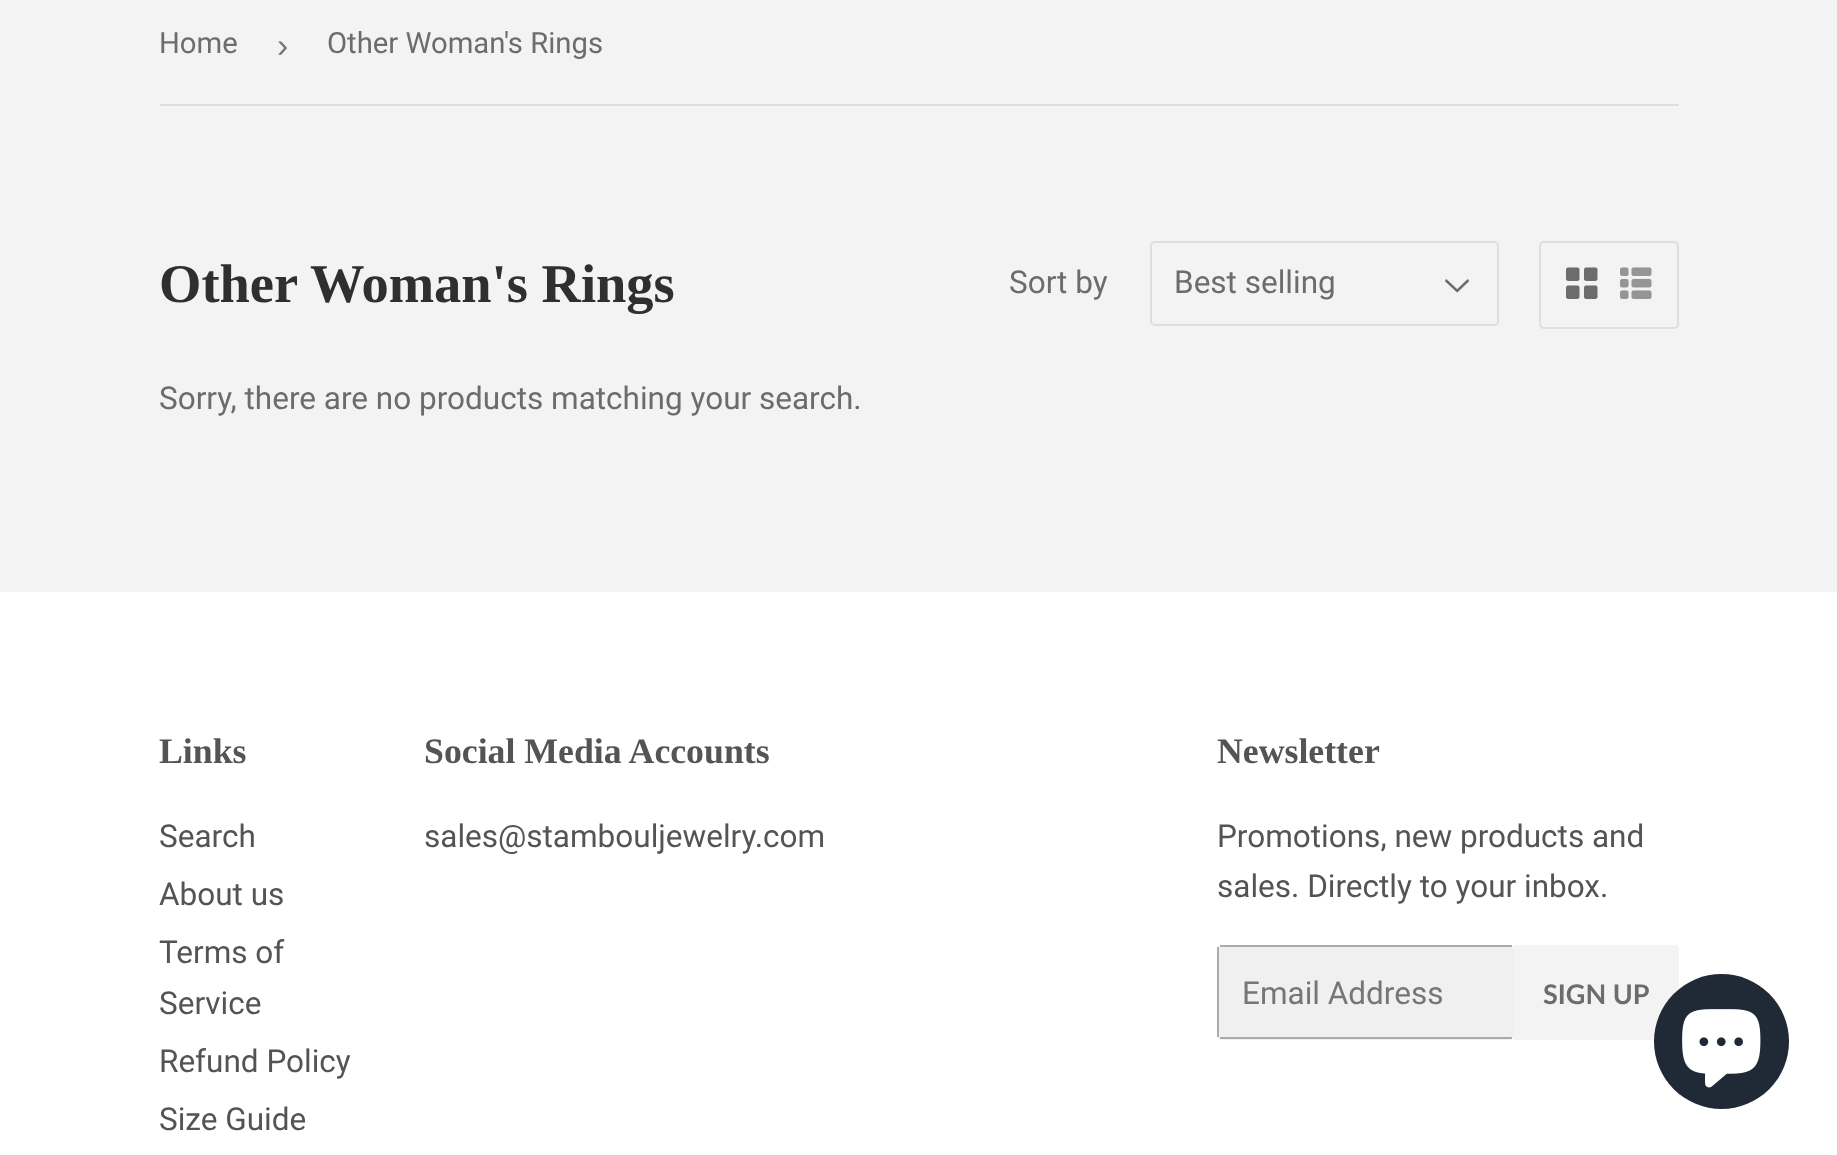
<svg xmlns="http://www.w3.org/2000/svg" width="1837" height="1155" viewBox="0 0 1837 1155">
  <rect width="100%" height="100%" fill="#f3f3f3"/>
  <path d="M160 104h1519v2H160z" fill="#dedede"/>
  <image x="1445" y="279" width="24" height="14" href="img/1.png"/>
  <rect x="1151" y="242" width="347" height="83" rx="4" fill="none" stroke="#dedede" stroke-width="2"/>
  <rect x="1540" y="242" width="138" height="86" rx="4" fill="none" stroke="#dedede" stroke-width="2"/>
  <image x="1566" y="267" width="32" height="32" href="img/2.png"/>
  <image x="1620" y="267" width="32" height="32" href="img/3.png"/>
  <path d="M0 592h1837v563H0z" fill="#fff"/>
  <rect x="1217" y="945" width="297" height="95" rx="5" fill="#f0f0f0"/>
  <path d="M1220 945h292v2H1220z" fill="#ababab"/>
  <path d="M1220 1037h292v2H1220z" fill="#ababab"/>
  <path d="M1217 947h2v90H1217z" fill="#ababab"/>
  <path d="M1514 945H1674C1677 945 1679 947 1679 950V1035C1679 1038 1677 1040 1674 1040H1514Z" fill="#f3f3f3"/>
  <circle cx="1721.5" cy="1041.5" r="67.5" fill="#202a36"/>
  <image x="1682" y="1009" width="79" height="79" href="img/4.png"/>
  <text x="159" y="53" font-family="Roboto" font-size="29.25" fill="#6c6c6c">Home</text>
  <text x="277" y="57" font-family="Liberation Sans" font-size="34" fill="#767676">›</text>
  <text x="327" y="53" font-family="Roboto" font-size="29.25" fill="#6c6c6c">Other Woman's Rings</text>
  <text x="159" y="302" font-family="Liberation Serif" font-size="54.5" font-weight="bold" fill="#2f2f2f">Other Woman's Rings</text>
  <g font-family="Roboto" font-size="31.5" fill="#6c6c6c">
    <text x="1009" y="293">Sort by</text>
    <text x="1174" y="293">Best selling</text>
    <text x="159" y="409">Sorry, there are no products matching your search.</text>
  </g>
  <text x="159" y="763" font-family="Liberation Serif" font-size="35.75" font-weight="bold" fill="#545454">Links</text>
  <g font-family="Roboto" font-size="31.5" fill="#545454">
    <text x="159" y="847">Search</text>
    <text x="159" y="905">About us</text>
    <text x="159" y="963">Terms of</text>
    <text x="159" y="1014">Service</text>
    <text x="159" y="1072">Refund Policy</text>
    <text x="159" y="1130">Size Guide</text>
  </g>
  <text x="424" y="763" font-family="Liberation Serif" font-size="35.75" font-weight="bold" fill="#545454">Social Media Accounts</text>
  <text x="424" y="847" font-family="Roboto" font-size="31.5" fill="#545454">sales@stambouljewelry.com</text>
  <text x="1217" y="763" font-family="Liberation Serif" font-size="35.75" font-weight="bold" fill="#545454">Newsletter</text>
  <g font-family="Roboto" font-size="31.5" fill="#545454">
    <text x="1217" y="847">Promotions, new products and</text>
    <text x="1217" y="897">sales. Directly to your inbox.</text>
  </g>
  <text x="1242" y="1004" font-family="Roboto" font-size="31.5" fill="#767676">Email Address</text>
  <text x="1543" y="1004" font-family="Lato" font-size="27" font-weight="bold" fill="#6c6c6c">SIGN UP</text>
</svg>
